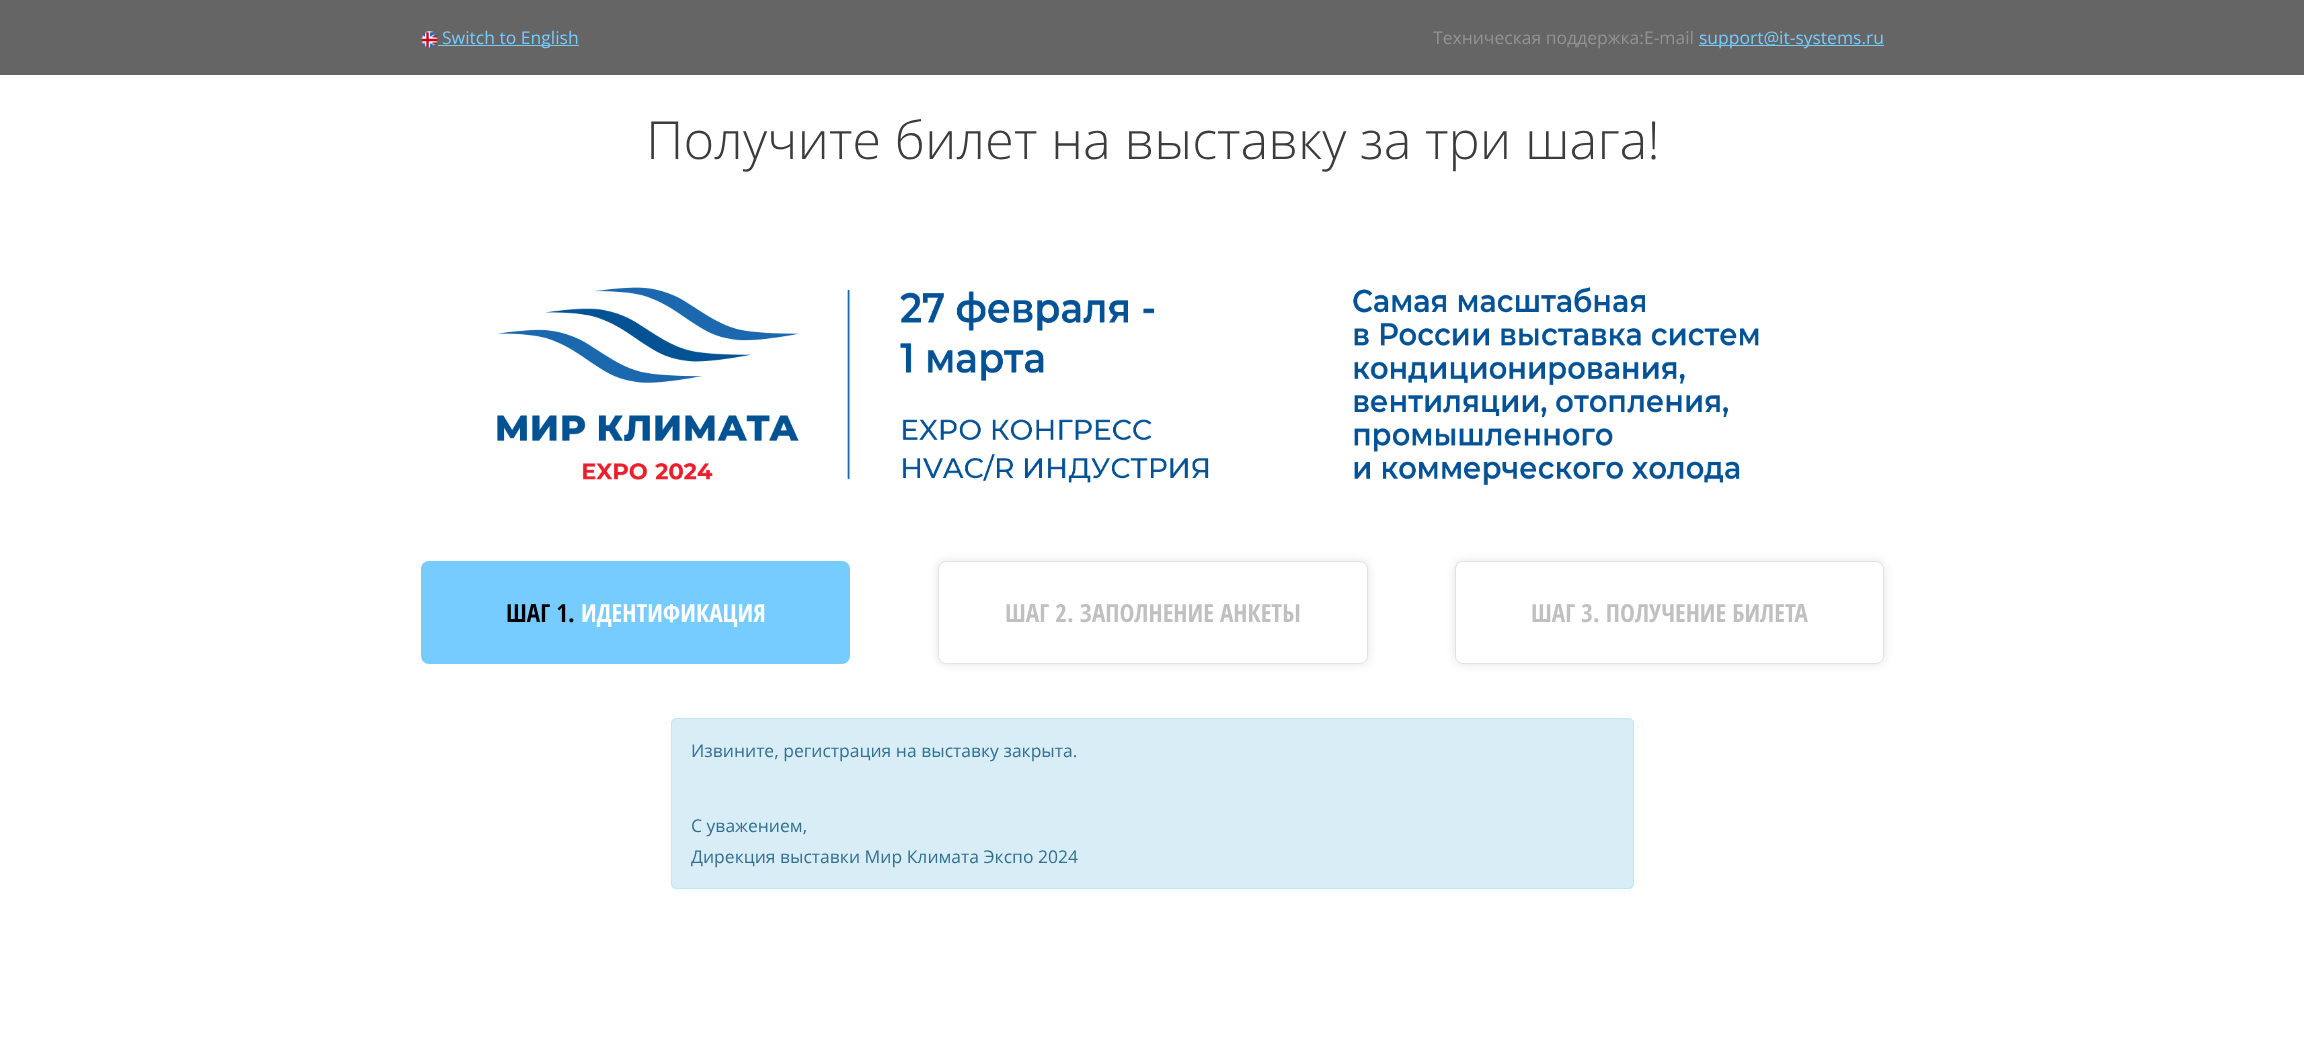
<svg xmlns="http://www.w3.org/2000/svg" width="2304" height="1062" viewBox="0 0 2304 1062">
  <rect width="100%" height="100%" fill="#fff"/>
  <path d="M0 0h2304v75H0z" fill="#656565"/>
  <image x="421" y="31" width="17" height="17" href="img/1.png"/>
  <path d="M438 45h141v1H438z" fill="#76ccff"/>
  <path d="M1699 45h185v1H1699z" fill="#76ccff"/>
  <image x="497" y="287" width="1262" height="198" href="img/2.png"/>
  <rect x="421" y="561" width="429" height="103" rx="8" fill="#76ccff"/>
  <rect x="938" y="561" width="430" height="103" rx="8" fill="#e3e3e3" filter="blur(5px)"/>
  <rect x="938.5" y="561.5" width="429" height="102" rx="7.5" fill="#fff" stroke="#e3e3e3"/>
  <rect x="1455" y="561" width="429" height="103" rx="8" fill="#e3e3e3" filter="blur(5px)"/>
  <rect x="1455.5" y="561.5" width="428" height="102" rx="7.5" fill="#fff" stroke="#e3e3e3"/>
  <rect x="671.5" y="718.5" width="962" height="170" rx="4.5" fill="#d9edf7" stroke="#bce8f1"/>
  <text x="442" y="44" font-family="Open Sans" font-size="17.5" fill="#76ccff">Switch to English</text>
  <text x="1433" y="44" font-family="Open Sans" font-size="17.5" fill="#939393">Техническая поддержка:E-mail</text>
  <text x="1699" y="44" font-family="Open Sans" font-size="17.5" fill="#76ccff">support@it-systems.ru</text>
  <text x="646" y="159" font-family="Open Sans" font-size="52.5" font-weight="300" fill="#3c3c3c">Получите билет на выставку за три шага!</text>
  <text x="506" y="622" font-family="Open Sans Condensed" font-size="25" font-weight="bold" fill="#000">ШАГ 1.</text>
  <text x="581" y="622" font-family="Open Sans Condensed" font-size="25" font-weight="bold" fill="#fff">ИДЕНТИФИКАЦИЯ</text>
  <g font-family="Open Sans Condensed" font-size="25" font-weight="bold" fill="#c0c0c0">
    <text x="1005" y="622">ШАГ 2. ЗАПОЛНЕНИЕ АНКЕТЫ</text>
    <text x="1531" y="622">ШАГ 3. ПОЛУЧЕНИЕ БИЛЕТА</text>
  </g>
  <g font-family="Open Sans" font-size="17.5" fill="#31708f">
    <text x="691" y="757">Извините, регистрация на выставку закрыта.</text>
    <text x="691" y="832">С уважением,</text>
    <text x="691" y="863">Дирекция выставки Мир Климата Экспо 2024</text>
  </g>
</svg>
